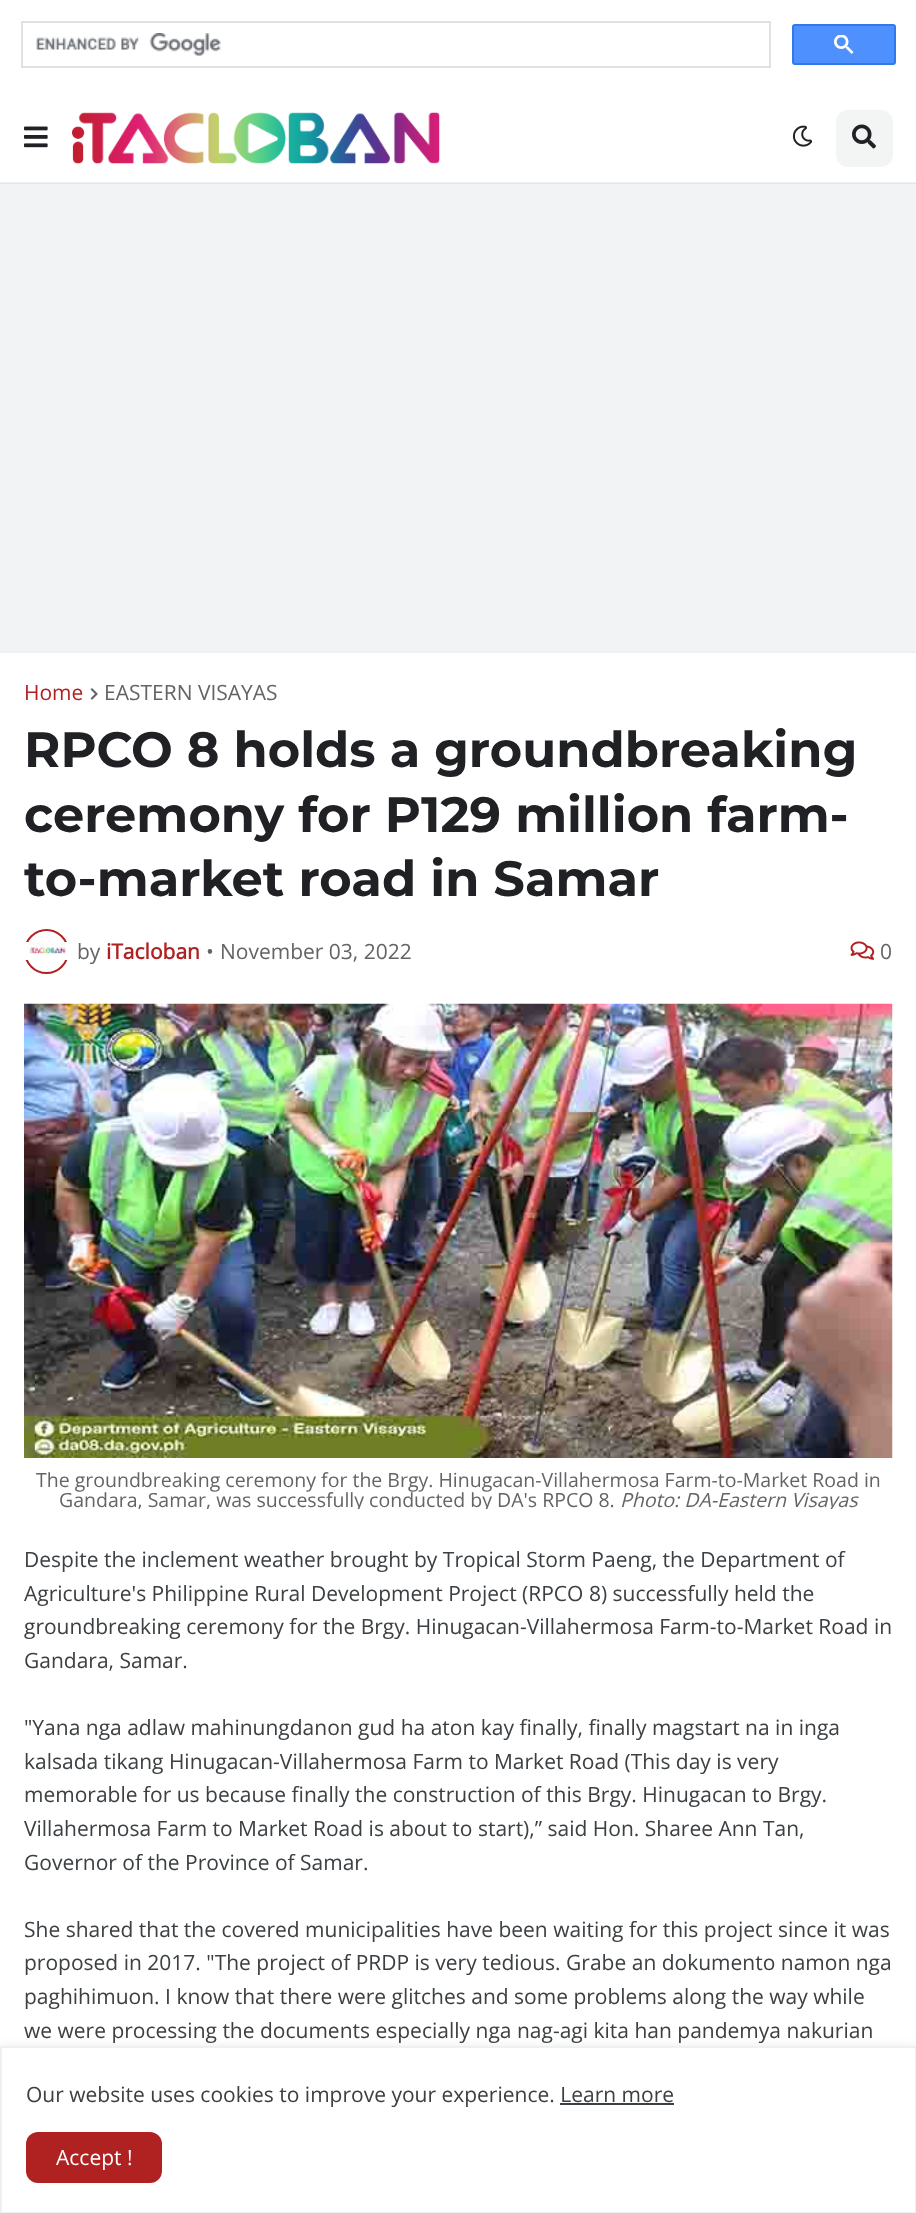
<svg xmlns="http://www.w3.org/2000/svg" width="916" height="2213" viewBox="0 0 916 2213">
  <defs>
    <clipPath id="clip1"><path d="M24 1004h869v505H24z"/></clipPath>
  </defs>
  <rect width="100%" height="100%" fill="#f1f3f4"/>
  <path d="M0 183h916v1H0z" fill="#e4e6e7"/>
  <path d="M0 0h916v182H0z" fill="#fff"/>
  <path d="M22 22h748v45H22z" fill="none" stroke="#dfe1e5" stroke-width="2"/>
  <image x="36" y="33" width="185" height="23" href="img/1.png"/>
  <rect x="793" y="25" width="102" height="39" rx="2" fill="#4d90fe" stroke="#3079ed" stroke-width="2"/>
  <image x="834" y="35" width="20" height="19" href="img/2.png"/>
  <path d="M0 182h916v1H0z" fill="#f0f0f0"/>
  <image x="24" y="126" width="24" height="22" href="img/3.png"/>
  <image x="72" y="112" width="368" height="52" href="img/4.png"/>
  <image x="792" y="125" width="21" height="22" href="img/5.png"/>
  <rect x="836" y="110" width="57" height="57" rx="12" fill="#f3f5f5"/>
  <image x="852" y="124" width="24" height="25" href="img/6.png"/>
  <path d="M0 653h916v1393H0z" fill="#fff"/>
  <path d="M0 651h916v2H0z" fill="#f0f0f0"/>
  <image x="90" y="688" width="8" height="12" href="img/7.png"/>
  <circle cx="46.5" cy="951.5" r="21.5" fill="none" stroke="#b02222" stroke-width="2"/>
  <path d="M24 942h45v18H24z" fill="#fff"/>
  <image x="27" y="931" width="39" height="23" href="img/8.png"/>
  <image x="850" y="941" width="25" height="19" href="img/9.png"/>
  <image x="24" y="1003" width="869" height="455" href="img/10.png"/>
  <path d="M0 2048h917v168H0z" fill="#0000001a" filter="blur(6px)"/>
  <path d="M1 2047h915v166H1z" fill="#fff" stroke="#f0f0f0" stroke-width="2"/>
  <path d="M560 2103h114v2H560z" fill="#3c4043"/>
  <rect x="26" y="2132" width="136" height="51" rx="12" fill="#b02222"/>
  <text x="24" y="700" font-family="Open Sans" font-size="21" fill="#b02222">Home</text>
  <text x="104" y="700" font-family="Open Sans" font-size="21" fill="#636466">EASTERN VISAYAS</text>
  <g font-family="Montserrat" font-size="49.5" font-weight="bold" fill="#202124">
    <text x="24" y="767">RPCO 8 holds a groundbreaking</text>
    <text x="24" y="832">ceremony for P129 million farm-</text>
    <text x="24" y="896">to-market road in Samar</text>
  </g>
  <text x="77" y="959" font-family="Open Sans" font-size="21" fill="#636466">by</text>
  <text x="106" y="959" font-family="Open Sans" font-size="21" font-weight="bold" fill="#b02222">iTacloban</text>
  <g font-family="Open Sans" font-size="21" fill="#636466">
    <text x="206" y="959">•</text>
    <text x="220" y="959">November 03, 2022</text>
    <text x="880" y="959">0</text>
  </g>
  <text x="36" y="1487" font-family="Open Sans" font-size="19.5" fill="#636466">The groundbreaking ceremony for the Brgy. Hinugacan-Villahermosa Farm-to-Market Road in</text>
  <g clip-path="url(#clip1)">
    <text x="59" y="1507" font-family="Open Sans" font-size="19.5" fill="#636466">Gandara, Samar, was successfully conducted by DA's RPCO 8.</text>
    <text x="620" y="1507" font-family="Open Sans" font-size="19.5" font-style="italic" fill="#636466">Photo: DA-Eastern Visayas</text>
  </g>
  <g font-family="Open Sans" font-size="21" fill="#3c4043">
    <text x="24" y="1567">Despite the inclement weather brought by Tropical Storm Paeng, the Department of</text>
    <text x="24" y="1601">Agriculture's Philippine Rural Development Project (RPCO 8) successfully held the</text>
    <text x="24" y="1634">groundbreaking ceremony for the Brgy. Hinugacan-Villahermosa Farm-to-Market Road in</text>
    <text x="24" y="1668">Gandara, Samar.</text>
    <text x="24" y="1735">"Yana nga adlaw mahinungdanon gud ha aton kay finally, finally magstart na in inga</text>
    <text x="24" y="1769">kalsada tikang Hinugacan-Villahermosa Farm to Market Road (This day is very</text>
    <text x="24" y="1802">memorable for us because finally the construction of this Brgy. Hinugacan to Brgy.</text>
    <text x="24" y="1836">Villahermosa Farm to Market Road is about to start),” said Hon. Sharee Ann Tan,</text>
    <text x="24" y="1870">Governor of the Province of Samar.</text>
    <text x="24" y="1937">She shared that the covered municipalities have been waiting for this project since it was</text>
    <text x="24" y="1970">proposed in 2017. "The project of PRDP is very tedious. Grabe an dokumento namon nga</text>
    <text x="24" y="2004">paghihimuon. I know that there were glitches and some problems along the way while</text>
    <text x="24" y="2038">we were processing the documents especially nga nag-agi kita han pandemya nakurian</text>
    <text x="26" y="2102">Our website uses cookies to improve your experience. Learn more</text>
  </g>
  <text x="56" y="2165" font-family="Open Sans" font-size="21" fill="#fff">Accept !</text>
</svg>
